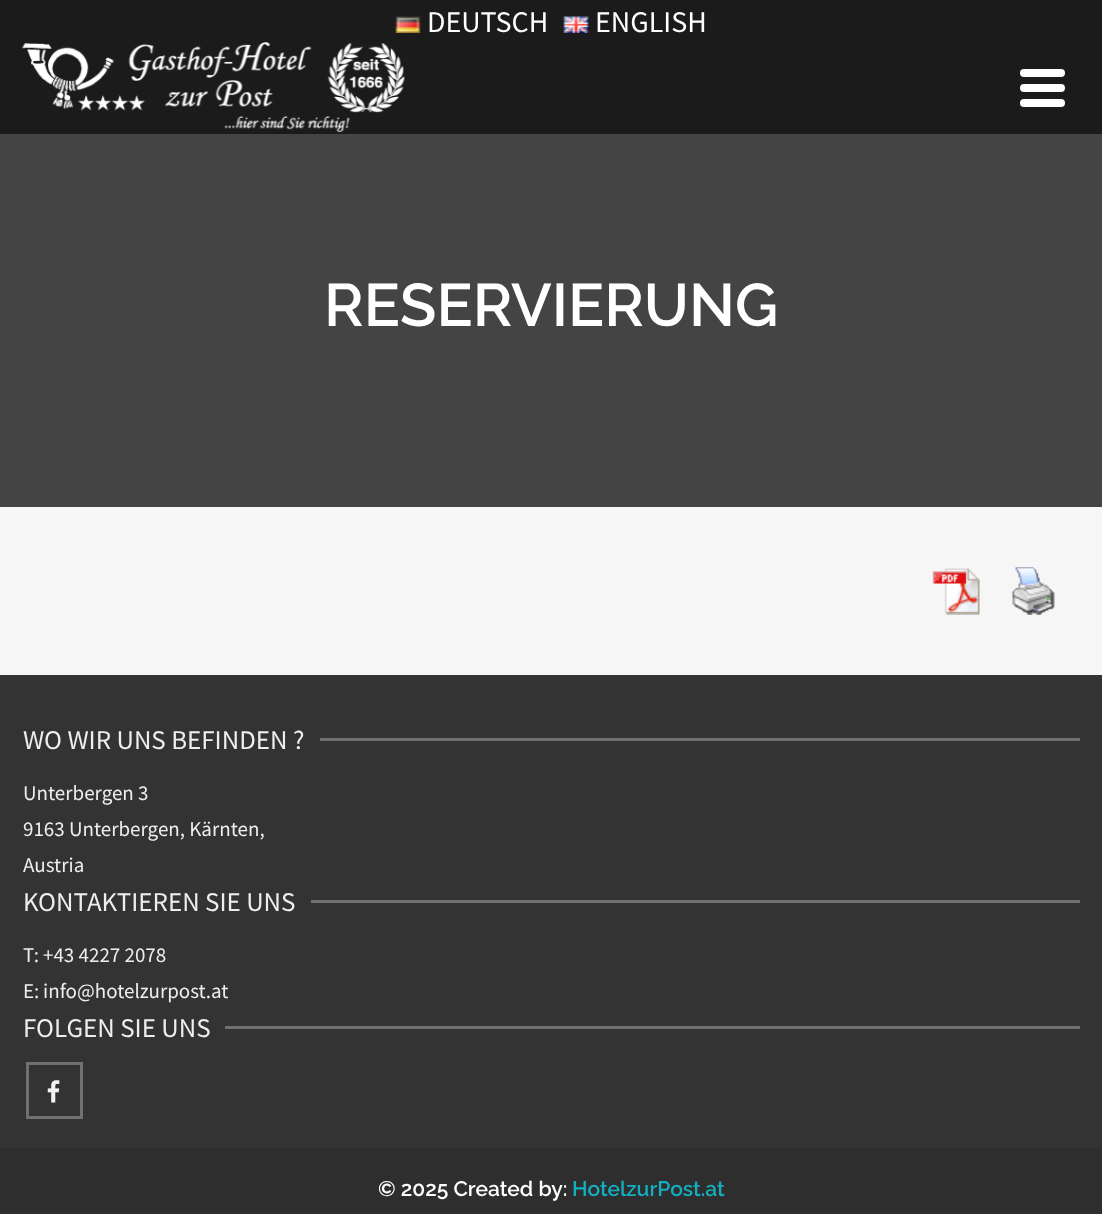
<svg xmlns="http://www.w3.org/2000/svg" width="1102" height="1214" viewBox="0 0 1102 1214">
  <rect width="100%" height="100%" fill="#f6f6f6"/>
  <path d="M0 0h1102v134H0z" fill="#1b1b1b"/>
  <image x="395" y="16" width="26" height="17" href="img/1.png"/>
  <image x="563" y="16" width="26" height="17" href="img/2.png"/>
  <image x="22" y="42" width="383" height="90" href="img/3.png"/>
  <rect x="1020" y="69" width="45" height="8" rx="4" fill="#fff"/>
  <rect x="1020" y="84" width="45" height="8" rx="4" fill="#fff"/>
  <rect x="1020" y="99" width="45" height="8" rx="4" fill="#fff"/>
  <path d="M0 134h1102v373H0z" fill="#444"/>
  <image x="932" y="568" width="48" height="47" href="img/4.png"/>
  <image x="1012" y="567" width="43" height="48" href="img/5.png"/>
  <path d="M0 675h1102v473H0z" fill="#333"/>
  <path d="M320 738h760v3H320z" fill="#707070"/>
  <path d="M311 900h769v3H311z" fill="#707070"/>
  <path d="M225 1026h855v3H225z" fill="#707070"/>
  <path d="M27.5 1063.5h54v54H27.5z" fill="none" stroke="#707070" stroke-width="3"/>
  <image x="47" y="1080" width="13" height="23" href="img/6.png"/>
  <path d="M0 1148h1102v66H0z" fill="#2e2e2e"/>
  <g font-family="Source Sans Pro" font-size="30" fill="#fff">
    <text x="427" y="32">DEUTSCH</text>
    <text x="595" y="32">ENGLISH</text>
  </g>
  <text x="324" y="326" font-family="Raleway" font-size="60" font-weight="600" fill="#fff">RESERVIERUNG</text>
  <text x="23" y="749" font-family="Source Sans Pro" font-size="27" fill="#eee">WO WIR UNS BEFINDEN ?</text>
  <g font-family="Source Sans Pro" font-size="21" fill="#eee">
    <text x="23" y="800">Unterbergen 3</text>
    <text x="23" y="836">9163 Unterbergen, Kärnten,</text>
    <text x="23" y="872">Austria</text>
  </g>
  <text x="23" y="911" font-family="Source Sans Pro" font-size="27" fill="#eee">KONTAKTIEREN SIE UNS</text>
  <g font-family="Source Sans Pro" font-size="21" fill="#eee">
    <text x="23" y="962">T:</text>
    <text x="43" y="962">+43 4227 2078</text>
    <text x="23" y="998">E:</text>
    <text x="43" y="998">info@hotelzurpost.at</text>
  </g>
  <text x="23" y="1037" font-family="Source Sans Pro" font-size="27" fill="#eee">FOLGEN SIE UNS</text>
  <text x="378" y="1196" font-family="Raleway" font-size="21" font-weight="600" fill="#fff">© 2025 Created by:</text>
  <text x="572" y="1196" font-family="Raleway" font-size="21" font-weight="600" fill="#13afbe">HotelzurPost.at</text>
</svg>
